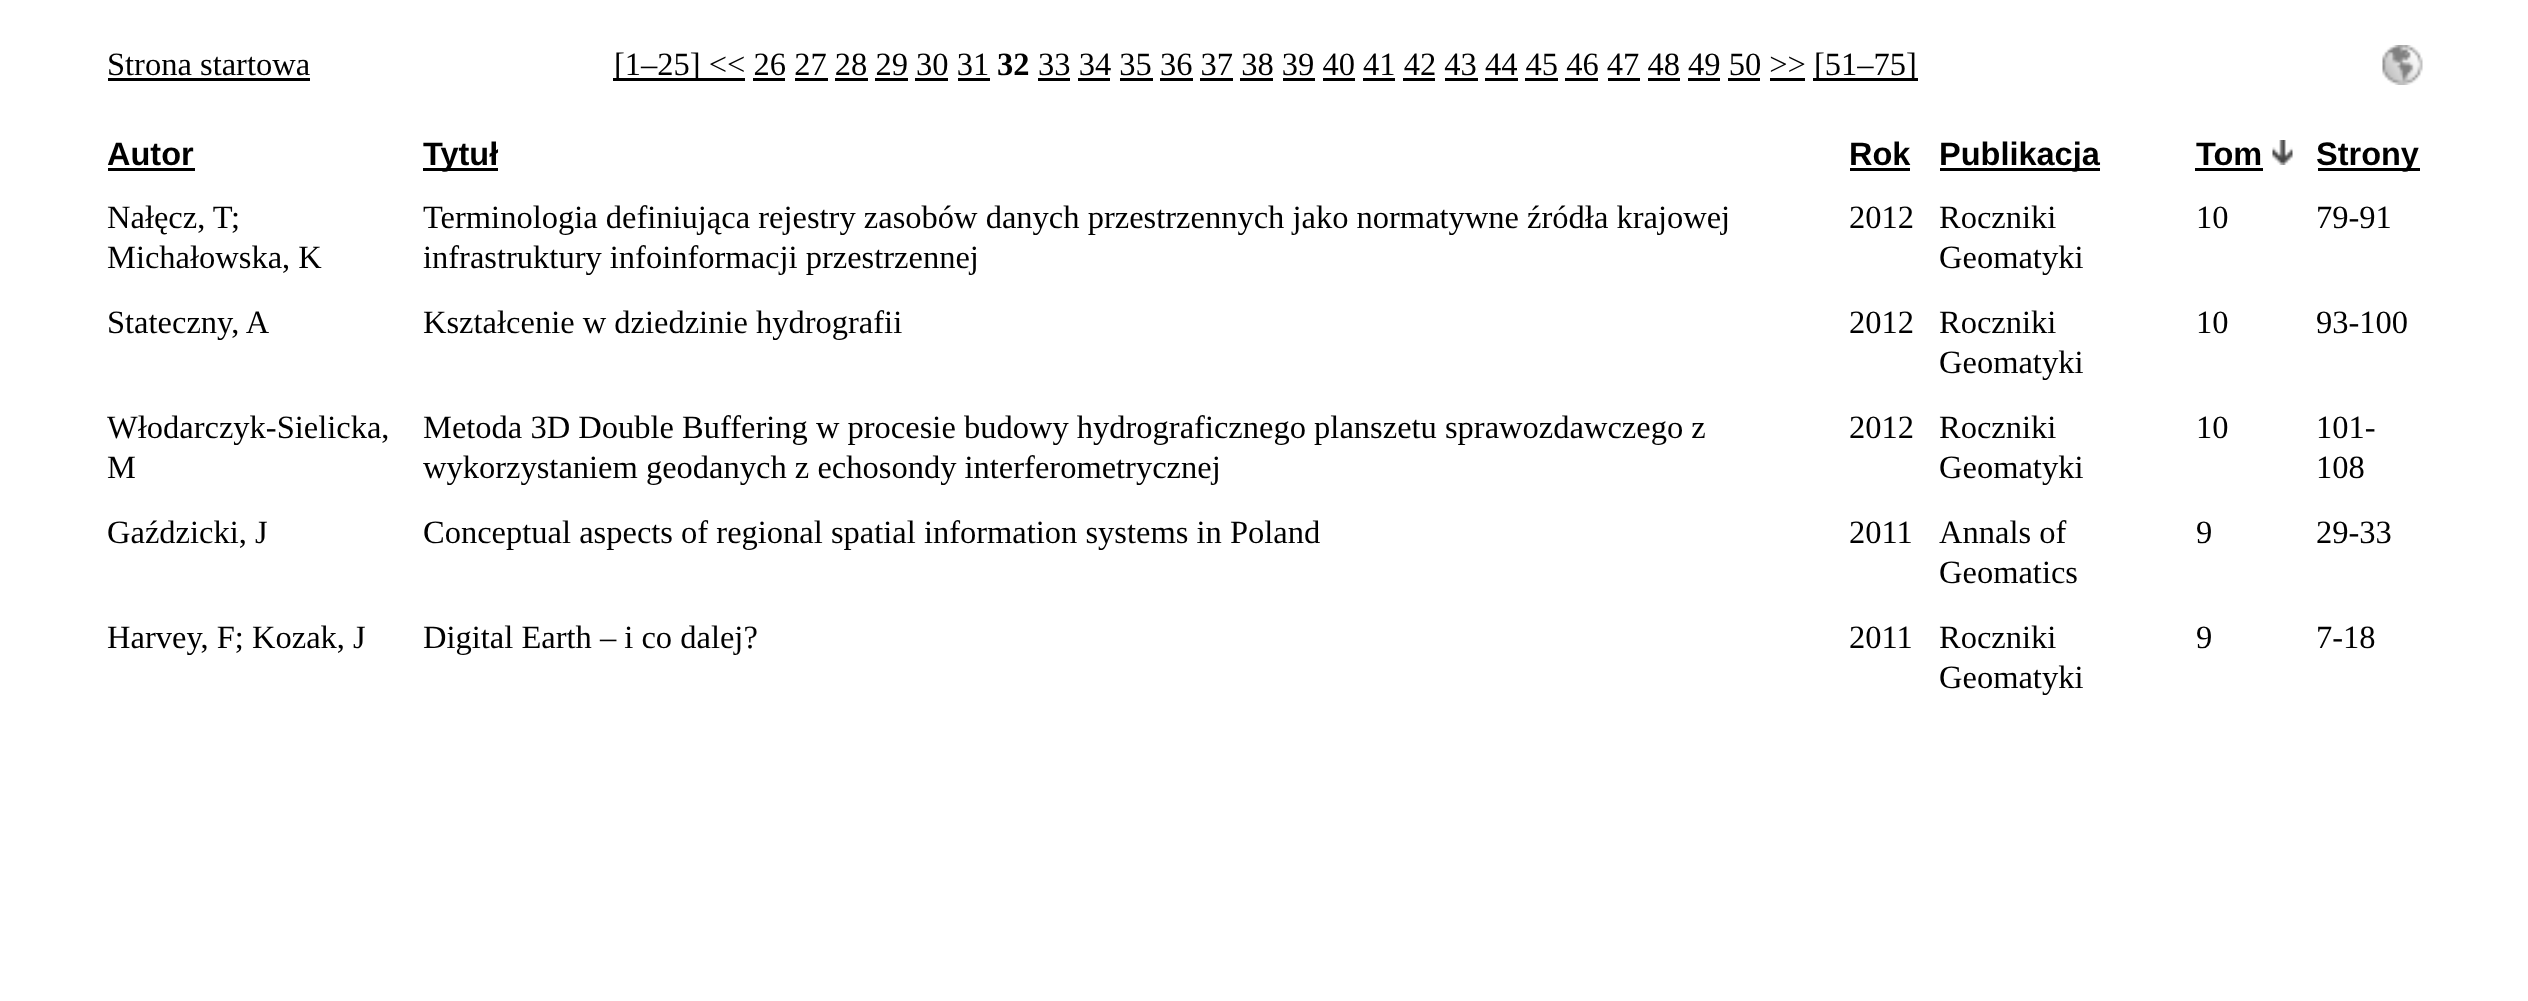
<svg xmlns="http://www.w3.org/2000/svg" width="2528" height="1001" viewBox="0 0 2528 1001">
  <rect width="100%" height="100%" fill="#fff"/>
  <path d="M108 78h202v3H108z" fill="#000"/>
  <path d="M613 78h132v3H613z" fill="#000"/>
  <path d="M1038 78h32v3H1038z" fill="#000"/>
  <path d="M1813 78h105v3H1813z" fill="#000"/>
  <path d="M753 78h32v3H753z" fill="#000"/>
  <path d="M795 78h33v3H795z" fill="#000"/>
  <path d="M835 78h33v3H835z" fill="#000"/>
  <path d="M875 78h33v3H875z" fill="#000"/>
  <path d="M915 78h33v3H915z" fill="#000"/>
  <path d="M958 78h32v3H958z" fill="#000"/>
  <path d="M1078 78h32v3H1078z" fill="#000"/>
  <path d="M1120 78h33v3H1120z" fill="#000"/>
  <path d="M1160 78h33v3H1160z" fill="#000"/>
  <path d="M1200 78h33v3H1200z" fill="#000"/>
  <path d="M1240 78h33v3H1240z" fill="#000"/>
  <path d="M1283 78h32v3H1283z" fill="#000"/>
  <path d="M1323 78h32v3H1323z" fill="#000"/>
  <path d="M1363 78h32v3H1363z" fill="#000"/>
  <path d="M1403 78h32v3H1403z" fill="#000"/>
  <path d="M1445 78h33v3H1445z" fill="#000"/>
  <path d="M1485 78h33v3H1485z" fill="#000"/>
  <path d="M1525 78h33v3H1525z" fill="#000"/>
  <path d="M1565 78h33v3H1565z" fill="#000"/>
  <path d="M1608 78h32v3H1608z" fill="#000"/>
  <path d="M1648 78h32v3H1648z" fill="#000"/>
  <path d="M1688 78h32v3H1688z" fill="#000"/>
  <path d="M1728 78h32v3H1728z" fill="#000"/>
  <path d="M1770 78h35v3H1770z" fill="#000"/>
  <image x="2382" y="45" width="41" height="40" href="img/1.png"/>
  <path d="M108 168h87v3H108z" fill="#000"/>
  <path d="M423 168h75v3H423z" fill="#000"/>
  <path d="M1850 168h60v3H1850z" fill="#000"/>
  <path d="M1940 168h160v3H1940z" fill="#000"/>
  <path d="M2195 168h68v3H2195z" fill="#000"/>
  <image x="2272" y="140" width="21" height="25" href="img/2.png"/>
  <path d="M2318 168h102v3H2318z" fill="#000"/>
  <g font-family="Liberation Serif" font-size="32.5" fill="#000">
    <text x="107" y="75">Strona startowa</text>
    <text x="614" y="75">[1–25] &lt;&lt; 26 27 28 29 30 31</text>
  </g>
  <text x="997" y="75" font-family="Liberation Serif" font-size="32.5" font-weight="bold" fill="#000">32</text>
  <g font-family="Liberation Serif" font-size="32.5" fill="#000">
    <text x="1038" y="75">33 34 35 36 37 38 39 40 41 42 43 44 45 46 47 48 49 50 &gt;&gt;</text>
    <text x="1814" y="75">[51–75]</text>
  </g>
  <g font-family="Liberation Sans" font-size="32.5" font-weight="bold" fill="#000">
    <text x="107" y="165">Autor</text>
    <text x="423" y="165">Tytuł</text>
    <text x="1849" y="165">Rok</text>
    <text x="1939" y="165">Publikacja</text>
    <text x="2196" y="165">Tom</text>
    <text x="2316" y="165">Strony</text>
  </g>
  <g font-family="Liberation Serif" font-size="32.5" fill="#000">
    <text x="107" y="228">Nałęcz, T;</text>
    <text x="107" y="268">Michałowska, K</text>
    <text x="423" y="228">Terminologia definiująca rejestry zasobów danych przestrzennych jako normatywne źródła krajowej</text>
    <text x="423" y="268">infrastruktury infoinformacji przestrzennej</text>
    <text x="1849" y="228">2012</text>
    <text x="1939" y="228">Roczniki</text>
    <text x="1939" y="268">Geomatyki</text>
    <text x="2196" y="228">10</text>
    <text x="2316" y="228">79-91</text>
    <text x="107" y="333">Stateczny, A</text>
    <text x="423" y="333">Kształcenie w dziedzinie hydrografii</text>
    <text x="1849" y="333">2012</text>
    <text x="1939" y="333">Roczniki</text>
    <text x="1939" y="373">Geomatyki</text>
    <text x="2196" y="333">10</text>
    <text x="2316" y="333">93-100</text>
    <text x="107" y="438">Włodarczyk-Sielicka,</text>
    <text x="107" y="478">M</text>
    <text x="423" y="438">Metoda 3D Double Buffering w procesie budowy hydrograficznego planszetu sprawozdawczego z</text>
    <text x="423" y="478">wykorzystaniem geodanych z echosondy interferometrycznej</text>
    <text x="1849" y="438">2012</text>
    <text x="1939" y="438">Roczniki</text>
    <text x="1939" y="478">Geomatyki</text>
    <text x="2196" y="438">10</text>
    <text x="2316" y="438">101-</text>
    <text x="2316" y="478">108</text>
    <text x="107" y="543">Gaździcki, J</text>
    <text x="423" y="543">Conceptual aspects of regional spatial information systems in Poland</text>
    <text x="1849" y="543">2011</text>
    <text x="1939" y="543">Annals of</text>
    <text x="1939" y="583">Geomatics</text>
    <text x="2196" y="543">9</text>
    <text x="2316" y="543">29-33</text>
    <text x="107" y="648">Harvey, F; Kozak, J</text>
    <text x="423" y="648">Digital Earth – i co dalej?</text>
    <text x="1849" y="648">2011</text>
    <text x="1939" y="648">Roczniki</text>
    <text x="1939" y="688">Geomatyki</text>
    <text x="2196" y="648">9</text>
    <text x="2316" y="648">7-18</text>
  </g>
</svg>
